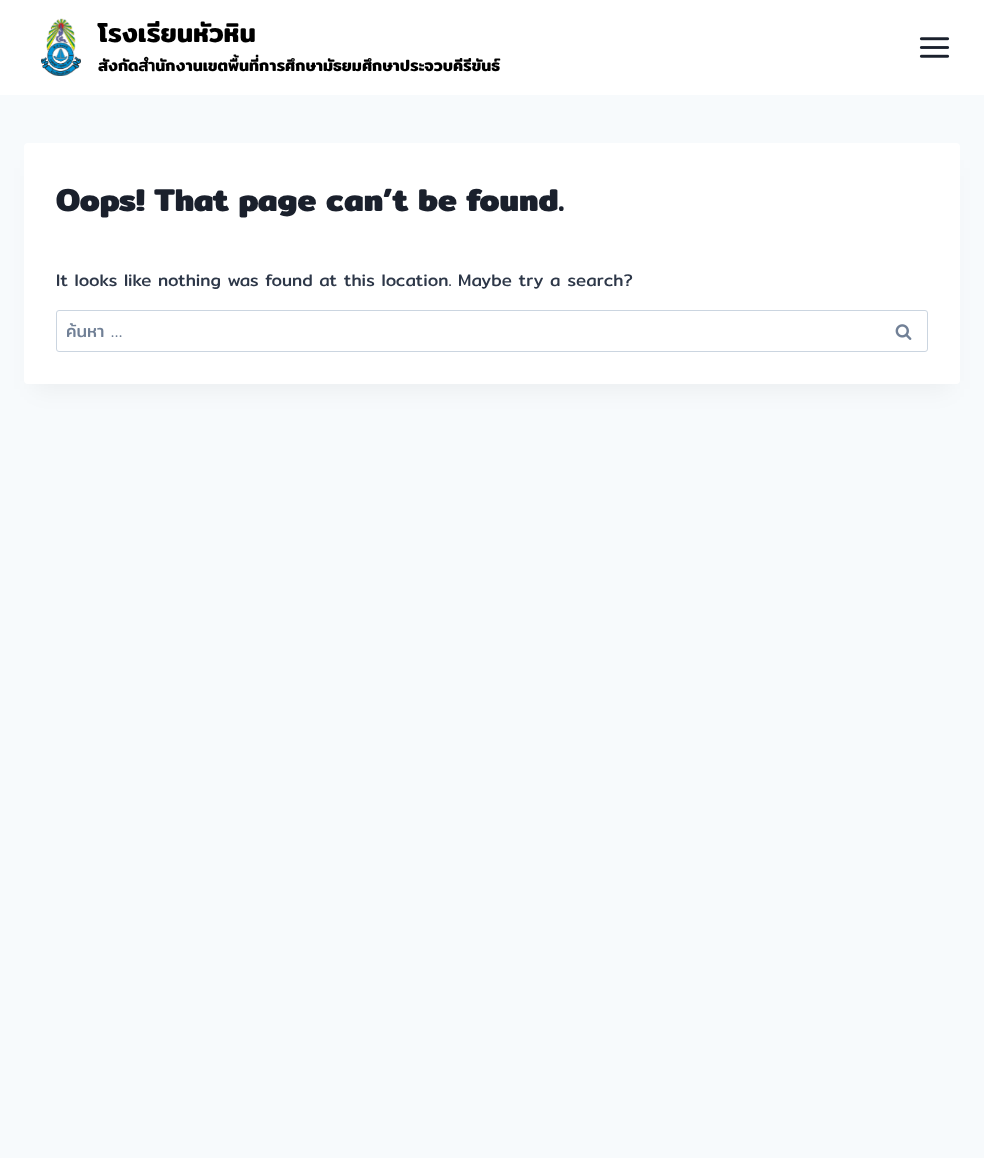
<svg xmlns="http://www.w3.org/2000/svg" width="984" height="1158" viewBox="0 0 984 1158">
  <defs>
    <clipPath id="clip1"><path d="M66 317h785v27H66z"/></clipPath>
  </defs>
  <rect width="100%" height="100%" fill="#f7fafc"/>
  <path d="M0 0h984v95H0z" fill="#fff"/>
  <image x="41" y="18" width="40" height="58" href="img/1.png"/>
  <image x="919" y="37" width="31" height="21" href="img/2.png"/>
  <path d="M34 168h916v221H34z" fill="#0000000d" filter="blur(12.5px)"/>
  <rect x="24" y="143" width="936" height="241" rx="4" fill="#fff"/>
  <rect x="56.5" y="310.5" width="871" height="41" rx="2.5" fill="none" stroke="#cbd5e0"/>
  <image x="895" y="324" width="17" height="16" href="img/3.png"/>
  <text x="98" y="42" font-family="Mitr" font-size="26" font-weight="600" fill="#000">โรงเรียนหัวหิน</text>
  <text x="98" y="71" font-family="Mitr" font-size="16" font-weight="600" fill="#000">สังกัดสำนักงานเขตพื้นที่การศึกษามัธยมศึกษาประจวบคีรีขันธ์</text>
  <text x="56" y="211" font-family="Mitr" font-size="32" font-weight="bold" fill="#1a202c">Oops! That page can’t be found.</text>
  <text x="56" y="286" font-family="Mitr" font-size="17" fill="#2d3748">It looks like nothing was found at this location. Maybe try a search?</text>
  <g clip-path="url(#clip1)">
    <text x="66" y="337" font-family="Mitr" font-size="17" fill="#718096">ค้นหา …</text>
  </g>
</svg>
